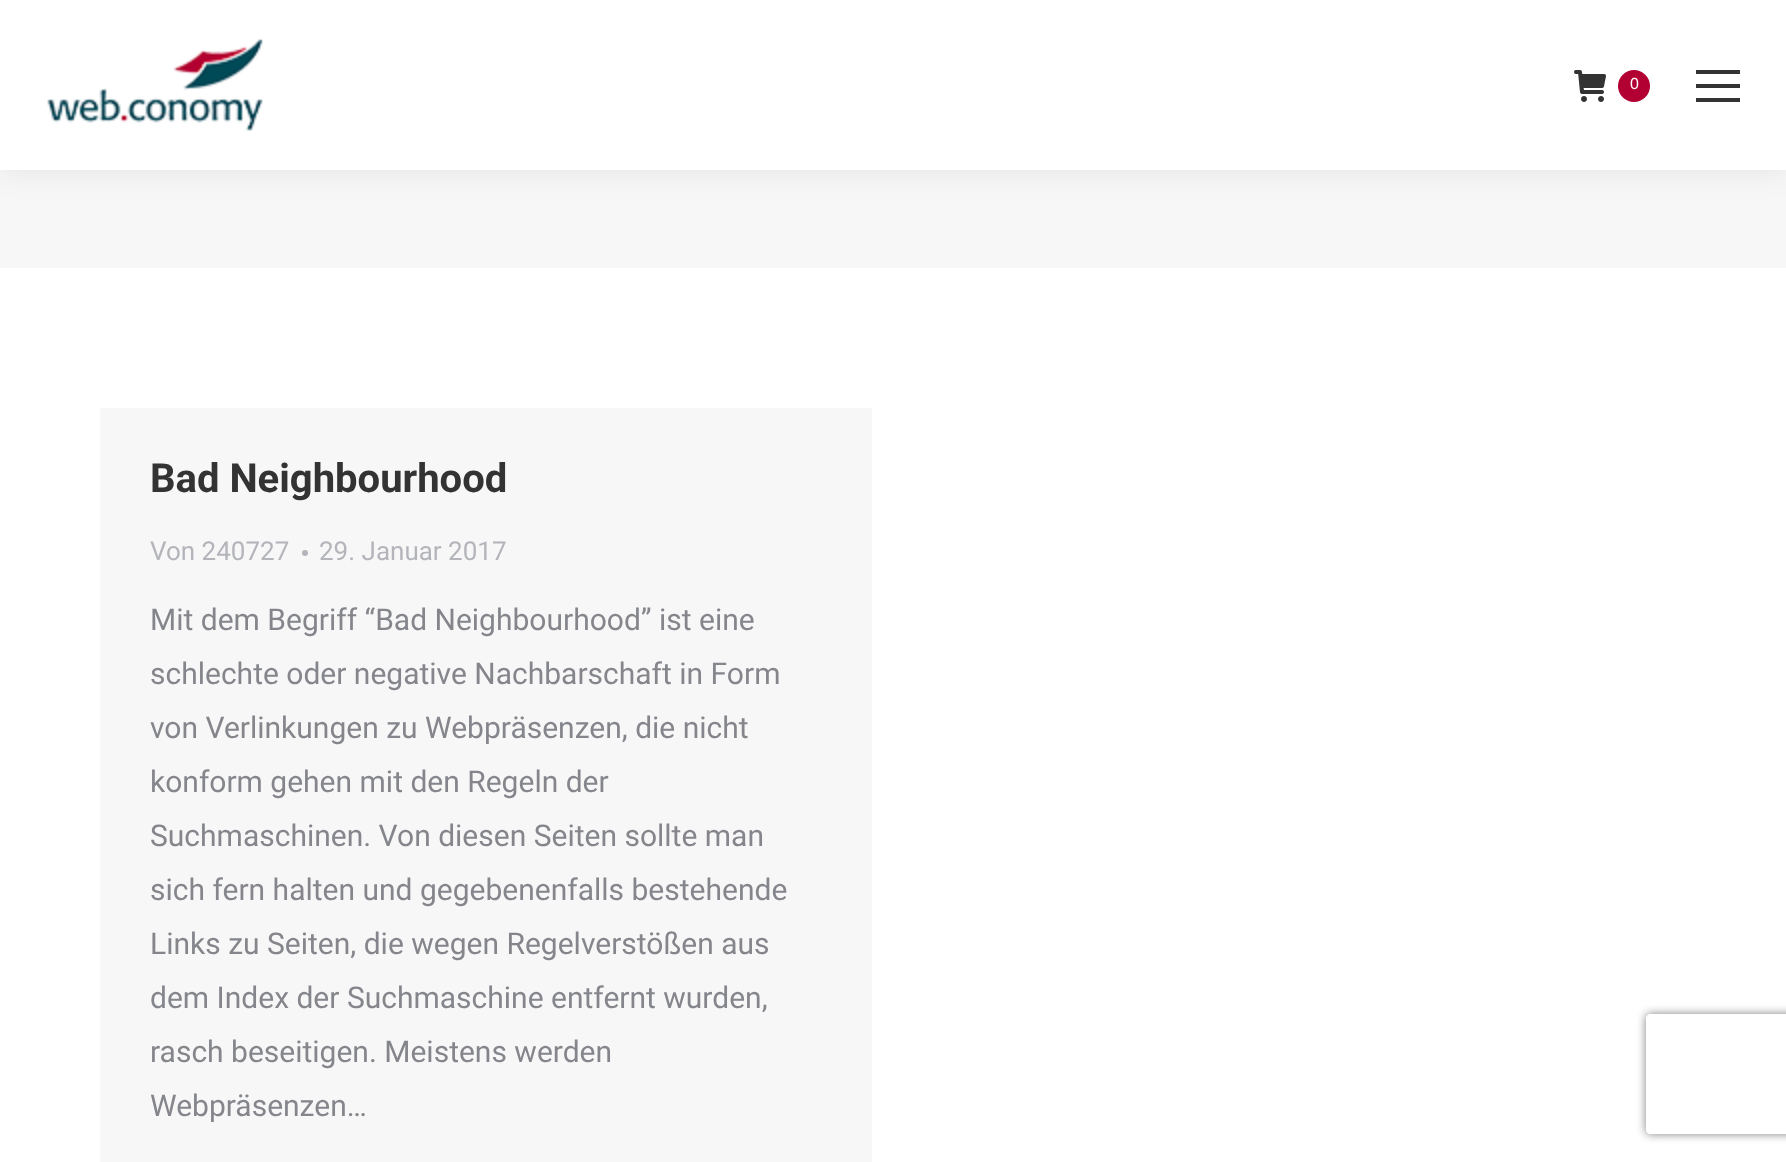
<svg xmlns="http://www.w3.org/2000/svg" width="1786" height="1162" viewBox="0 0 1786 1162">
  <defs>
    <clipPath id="clip1"><path d="M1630 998H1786V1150H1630ZM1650 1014H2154C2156 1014 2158 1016 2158 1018V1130C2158 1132 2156 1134 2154 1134H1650C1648 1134 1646 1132 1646 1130V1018C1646 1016 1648 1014 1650 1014Z" clip-rule="evenodd"/></clipPath>
  </defs>
  <rect width="100%" height="100%" fill="#fff"/>
  <path d="M0 170h1786v98H0z" fill="#f7f7f7"/>
  <path d="M-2 -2h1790v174H-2z" fill="#00000012" filter="blur(15px)"/>
  <path d="M0 0h1786v170H0z" fill="#fff"/>
  <image x="47" y="39" width="216" height="92" href="img/1.png"/>
  <image x="1574" y="70" width="32" height="32" href="img/2.png"/>
  <circle cx="1634" cy="86" r="16" fill="#b30033"/>
  <path d="M1696 70h44v4H1696z" fill="#333"/>
  <path d="M1696 84h44v4H1696z" fill="#333"/>
  <path d="M1696 98h44v4H1696z" fill="#333"/>
  <path d="M100 408h772v754H100z" fill="#f7f7f7"/>
  <circle cx="305" cy="553" r="3" fill="#b4b5bb"/>
  <g clip-path="url(#clip1)">
    <rect x="1646" y="1014" width="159" height="120" rx="4" fill="#808080" filter="blur(5px)"/>
  </g>
  <text x="1630" y="89" font-family="Liberation Sans" font-size="16" fill="#fff">0</text>
  <text x="150" y="492" font-family="Roboto" font-size="40" font-weight="bold" fill="#333">Bad Neighbourhood</text>
  <g font-family="Roboto" font-size="26" fill="#b4b5bb">
    <text x="150" y="560">Von 240727</text>
    <text x="319" y="560">29. Januar 2017</text>
  </g>
  <g font-family="Roboto" font-size="30" fill="#85868c">
    <text x="150" y="630">Mit dem Begriff “Bad Neighbourhood” ist eine</text>
    <text x="150" y="684">schlechte oder negative Nachbarschaft in Form</text>
    <text x="150" y="738">von Verlinkungen zu Webpräsenzen, die nicht</text>
    <text x="150" y="792">konform gehen mit den Regeln der</text>
    <text x="150" y="846">Suchmaschinen. Von diesen Seiten sollte man</text>
    <text x="150" y="900">sich fern halten und gegebenenfalls bestehende</text>
    <text x="150" y="954">Links zu Seiten, die wegen Regelverstößen aus</text>
    <text x="150" y="1008">dem Index der Suchmaschine entfernt wurden,</text>
    <text x="150" y="1062">rasch beseitigen. Meistens werden</text>
    <text x="150" y="1116">Webpräsenzen…</text>
  </g>
</svg>
